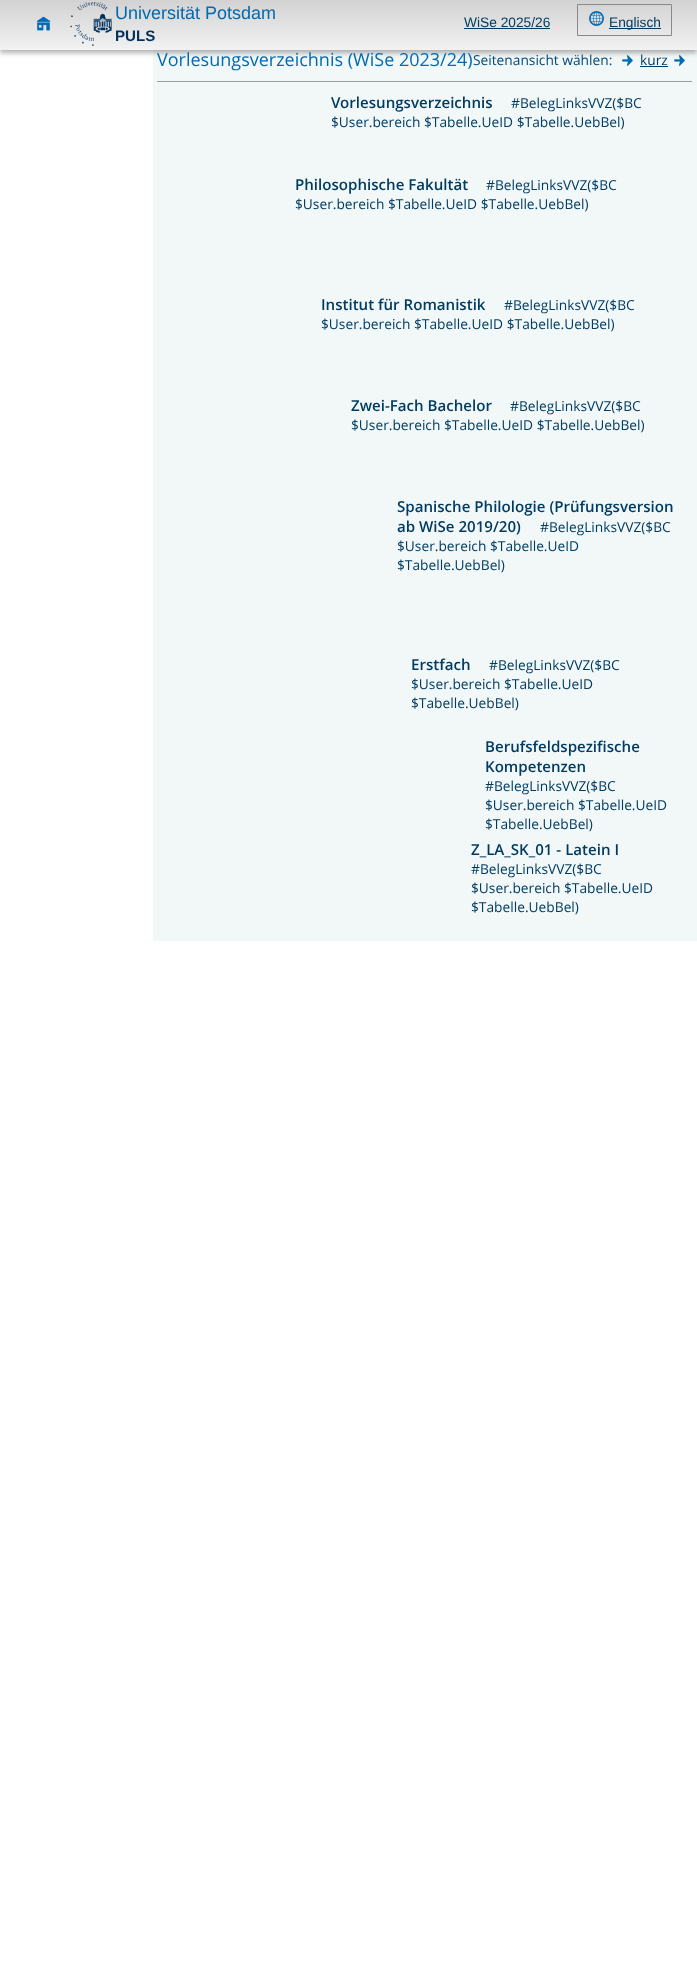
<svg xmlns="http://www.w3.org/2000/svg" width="697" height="1965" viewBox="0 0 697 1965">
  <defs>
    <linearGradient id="g1" gradientUnits="userSpaceOnUse" x1="349" y1="0" x2="349" y2="50"><stop offset="0" stop-color="#d2d2d2"/><stop offset="1" stop-color="#f2f2f2"/></linearGradient>
  </defs>
  <rect width="100%" height="100%" fill="#fff"/>
  <path d="M153 50h544v891H153z" fill="#f2f7f8"/>
  <image x="622" y="55" width="11" height="11" href="img/4.png"/>
  <image x="674" y="55" width="11" height="11" href="img/4.png"/>
  <path d="M0 3h697v50H0z" fill="#0000004d" filter="blur(2.5px)"/>
  <path d="M0 0h697v50H0z" fill="url(#g1)"/>
  <image x="36" y="16" width="15" height="15" href="img/1.png"/>
  <image x="70" y="2" width="42" height="44" href="img/2.png"/>
  <path d="M464 28h86v1H464z" fill="#003c62"/>
  <path d="M577.5 4.5h94v31H577.5z" fill="none" stroke="#8a8888"/>
  <image x="589" y="11" width="15" height="15" href="img/3.png"/>
  <path d="M609 28h52v1H609z" fill="#003c62"/>
  <path d="M640 66h28v1H640z" fill="#003c62"/>
  <path d="M157 81h536v1H157z" fill="#9f9f9f"/>
  <path d="M692 81h1v1H692z" fill="#eee"/>
  <text x="115" y="19" font-family="Liberation Sans" font-size="18" fill="#006ab2">Universität Potsdam</text>
  <text x="115" y="41" font-family="Liberation Sans" font-size="15.1" font-weight="bold" fill="#00305e">PULS</text>
  <g font-family="Liberation Sans" font-size="13.75" fill="#003c62">
    <text x="464" y="27">WiSe 2025/26</text>
    <text x="609" y="27">Englisch</text>
  </g>
  <text x="157" y="66" font-family="Open Sans" font-size="18" fill="#006ab2">Vorlesungsverzeichnis (WiSe 2023/24)</text>
  <text x="473" y="65" font-family="Open Sans" font-size="13.75" fill="#014a7b">Seitenansicht wählen:</text>
  <text x="640" y="65" font-family="Open Sans" font-size="13.75" fill="#003c62">kurz</text>
  <text x="331" y="108" font-family="Open Sans" font-size="15.1" font-weight="600" fill="#003c62">Vorlesungsverzeichnis</text>
  <g font-family="Open Sans" font-size="13.75" fill="#003c62">
    <text x="511" y="108">#BelegLinksVVZ($BC</text>
    <text x="331" y="127">$User.bereich $Tabelle.UeID $Tabelle.UebBel)</text>
  </g>
  <text x="295" y="190" font-family="Open Sans" font-size="15.1" font-weight="600" fill="#003c62">Philosophische Fakultät</text>
  <g font-family="Open Sans" font-size="13.75" fill="#003c62">
    <text x="486" y="190">#BelegLinksVVZ($BC</text>
    <text x="295" y="209">$User.bereich $Tabelle.UeID $Tabelle.UebBel)</text>
  </g>
  <text x="321" y="310" font-family="Open Sans" font-size="15.1" font-weight="600" fill="#003c62">Institut für Romanistik</text>
  <g font-family="Open Sans" font-size="13.75" fill="#003c62">
    <text x="504" y="310">#BelegLinksVVZ($BC</text>
    <text x="321" y="329">$User.bereich $Tabelle.UeID $Tabelle.UebBel)</text>
  </g>
  <text x="351" y="411" font-family="Open Sans" font-size="15.1" font-weight="600" fill="#003c62">Zwei-Fach Bachelor</text>
  <g font-family="Open Sans" font-size="13.75" fill="#003c62">
    <text x="510" y="411">#BelegLinksVVZ($BC</text>
    <text x="351" y="430">$User.bereich $Tabelle.UeID $Tabelle.UebBel)</text>
  </g>
  <g font-family="Open Sans" font-size="15.1" font-weight="600" fill="#003c62">
    <text x="397" y="512">Spanische Philologie (Prüfungsversion</text>
    <text x="397" y="532">ab WiSe 2019/20)</text>
  </g>
  <g font-family="Open Sans" font-size="13.75" fill="#003c62">
    <text x="540" y="532">#BelegLinksVVZ($BC</text>
    <text x="397" y="551">$User.bereich $Tabelle.UeID</text>
    <text x="397" y="570">$Tabelle.UebBel)</text>
  </g>
  <text x="411" y="670" font-family="Open Sans" font-size="15.1" font-weight="600" fill="#003c62">Erstfach</text>
  <g font-family="Open Sans" font-size="13.75" fill="#003c62">
    <text x="489" y="670">#BelegLinksVVZ($BC</text>
    <text x="411" y="689">$User.bereich $Tabelle.UeID</text>
    <text x="411" y="708">$Tabelle.UebBel)</text>
  </g>
  <g font-family="Open Sans" font-size="15.1" font-weight="600" fill="#003c62">
    <text x="485" y="752">Berufsfeldspezifische</text>
    <text x="485" y="772">Kompetenzen</text>
  </g>
  <g font-family="Open Sans" font-size="13.75" fill="#003c62">
    <text x="485" y="791">#BelegLinksVVZ($BC</text>
    <text x="485" y="810">$User.bereich $Tabelle.UeID</text>
    <text x="485" y="829">$Tabelle.UebBel)</text>
  </g>
  <text x="471" y="855" font-family="Open Sans" font-size="15.1" font-weight="600" fill="#003c62">Z_LA_SK_01 - Latein I</text>
  <g font-family="Open Sans" font-size="13.75" fill="#003c62">
    <text x="471" y="874">#BelegLinksVVZ($BC</text>
    <text x="471" y="893">$User.bereich $Tabelle.UeID</text>
    <text x="471" y="912">$Tabelle.UebBel)</text>
  </g>
</svg>
